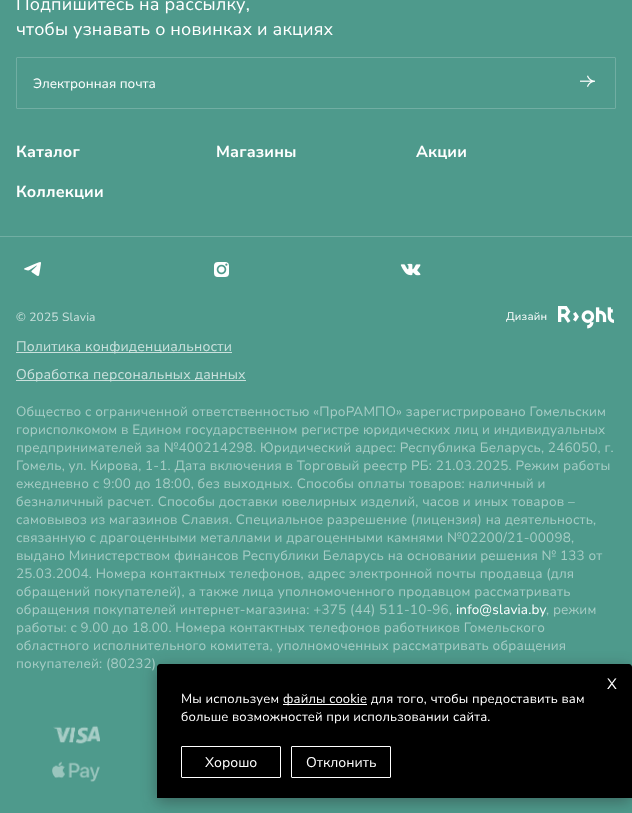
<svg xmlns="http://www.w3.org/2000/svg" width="632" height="813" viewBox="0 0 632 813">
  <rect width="100%" height="100%" fill="#4e9a8c"/>
  <rect x="16.5" y="57.5" width="599" height="51" rx="0.5" fill="none" stroke="#71aea3"/>
  <image x="580" y="75" width="15" height="12" href="img/1.png"/>
  <path d="M0 236h632v1H0z" fill="#71aea3"/>
  <image x="24" y="262" width="17" height="14" href="img/2.png"/>
  <image x="214" y="262" width="15" height="15" href="img/3.png"/>
  <image x="400" y="263" width="21" height="13" href="img/4.png"/>
  <image x="558" y="306" width="56" height="23" href="img/5.png"/>
  <path d="M16 352h216v1H16z" fill="#cae1dd"/>
  <path d="M16 380h230v1H16z" fill="#cae1dd"/>
  <image x="53" y="725" width="47" height="19" href="img/6.png"/>
  <image x="52" y="761" width="48" height="21" href="img/7.png"/>
  <rect x="157" y="668" width="475" height="134" rx="3" fill="#231f2066" filter="blur(7.5px)"/>
  <path d="M160 664H629C630.5 664 632 665.5 632 667V798H157V667C157 665.5 158.5 664 160 664Z" fill="#000"/>
  <path d="M283 704h84v1H283z" fill="#fff"/>
  <rect x="181.5" y="746.5" width="99" height="31" rx="0.5" fill="none" stroke="#fff"/>
  <rect x="291.5" y="746.5" width="99" height="31" rx="0.5" fill="none" stroke="#fff"/>
  <g font-family="Nunito Sans" font-size="18" letter-spacing="0.18" fill="#fff">
    <text x="16" y="10">Подпишитесь на рассылку,</text>
    <text x="16" y="35">чтобы узнавать о новинках и акциях</text>
  </g>
  <text x="33" y="88" font-family="Nunito Sans" font-size="13.5" fill="#fff">Электронная почта</text>
  <g font-family="Nunito Sans" font-size="16" font-weight="bold" letter-spacing="0.18" fill="#fff">
    <text x="16" y="157">Каталог</text>
    <text x="216" y="157">Магазины</text>
    <text x="416" y="157">Акции</text>
    <text x="16" y="197">Коллекции</text>
  </g>
  <text x="16" y="321" font-family="Nunito Sans" font-size="12" letter-spacing="0.18" fill="#cae1dd">© 2025 Slavia</text>
  <text x="506" y="320" font-family="'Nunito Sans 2'" font-size="11" letter-spacing="0.18" fill="#fff">Дизайн</text>
  <g font-family="Nunito Sans" font-size="14" letter-spacing="0.18" fill="#cae1dd">
    <text x="16" y="351">Политика конфиденциальности</text>
    <text x="16" y="379">Обработка персональных данных</text>
  </g>
  <g font-family="Nunito Sans" font-size="13.5" letter-spacing="0.18" fill="#a7cdc6">
    <text x="16" y="416">Общество с ограниченной ответственностью «ПроРАМПО» зарегистрировано Гомельским</text>
    <text x="16" y="434">горисполкомом в Едином государственном регистре юридических лиц и индивидуальных</text>
    <text x="16" y="452">предпринимателей за №400214298. Юридический адрес: Республика Беларусь, 246050, г.</text>
    <text x="16" y="470">Гомель, ул. Кирова, 1-1. Дата включения в Торговый реестр РБ: 21.03.2025. Режим работы</text>
    <text x="16" y="488">ежедневно с 9:00 до 18:00, без выходных. Способы оплаты товаров: наличный и</text>
    <text x="16" y="506">безналичный расчет. Способы доставки ювелирных изделий, часов и иных товаров –</text>
    <text x="16" y="524">самовывоз из магазинов Славия. Специальное разрешение (лицензия) на деятельность,</text>
    <text x="16" y="542">связанную с драгоценными металлами и драгоценными камнями №02200/21-00098,</text>
    <text x="16" y="560">выдано Министерством финансов Республики Беларусь на основании решения № 133 от</text>
    <text x="16" y="578">25.03.2004. Номера контактных телефонов, адрес электронной почты продавца (для</text>
    <text x="16" y="596">обращений покупателей), а также лица уполномоченного продавцом рассматривать</text>
    <text x="16" y="614">обращения покупателей интернет-магазина: +375 (44) 511-10-96,</text>
  </g>
  <text x="456" y="614" font-family="Nunito Sans" font-size="13.5" letter-spacing="0.18" fill="#fff">info@slavia.by</text>
  <g font-family="Nunito Sans" font-size="13.5" letter-spacing="0.18" fill="#a7cdc6">
    <text x="546" y="614">, режим</text>
    <text x="16" y="632">работы: с 9.00 до 18.00. Номера контактных телефонов работников Гомельского</text>
    <text x="16" y="650">областного исполнительного комитета, уполномоченных рассматривать обращения</text>
    <text x="16" y="668">покупателей: (80232)</text>
  </g>
  <text x="607" y="689" font-family="Nunito Sans" font-size="15" fill="#fff">X</text>
  <g font-family="Nunito Sans" font-size="13" letter-spacing="0.18" fill="#fff">
    <text x="181" y="703">Мы используем</text>
    <text x="283" y="703">файлы cookie для того, чтобы предоставить вам</text>
    <text x="181" y="721">больше возможностей при иcпользовании сайта.</text>
  </g>
  <g font-family="Nunito Sans" font-size="14" fill="#fff">
    <text x="205" y="767">Хорошо</text>
    <text x="306" y="767">Отклонить</text>
  </g>
</svg>
